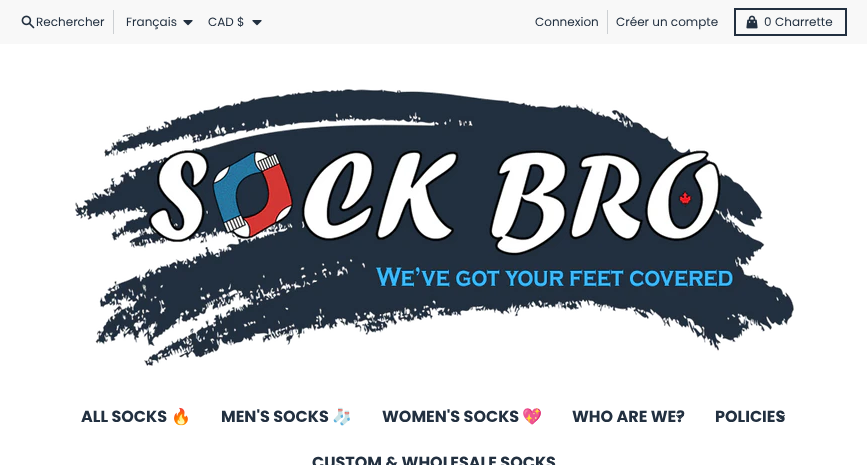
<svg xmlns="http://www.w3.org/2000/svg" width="867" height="465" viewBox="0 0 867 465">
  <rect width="100%" height="100%" fill="#fff"/>
  <path d="M0 0h867v44H0z" fill="#f8f8f8"/>
  <image x="21" y="15" width="14" height="14" href="img/1.png"/>
  <path d="M113 10h1v24H113z" fill="#cdd0d3"/>
  <image x="183" y="20" width="10" height="6" href="img/2.png"/>
  <image x="252" y="20" width="10" height="6" href="img/2.png"/>
  <path d="M607 10h1v24H607z" fill="#cdd0d3"/>
  <path d="M735 9h111v26H735z" fill="none" stroke="#223040" stroke-width="2"/>
  <image x="746" y="15" width="12" height="14" href="img/3.png"/>
  <image x="75" y="89" width="719" height="277" href="img/4.png"/>
  <g font-family="Poppins" font-size="12" fill="#223040">
    <text x="36" y="26">Rechercher</text>
    <text x="126" y="26">Français</text>
    <text x="208" y="26">CAD $</text>
    <text x="535" y="26">Connexion</text>
    <text x="616" y="26">Créer un compte</text>
    <text x="764" y="26">0</text>
    <text x="775" y="26">Charrette</text>
  </g>
  <text x="81" y="422" font-family="Poppins" font-size="16" font-weight="bold" fill="#223040">ALL SOCKS</text>
  <text x="171" y="422" font-family="Noto Color Emoji" font-size="16" font-weight="bold" fill="#223040">🔥</text>
  <text x="221" y="422" font-family="Poppins" font-size="16" font-weight="bold" fill="#223040">MEN'S SOCKS</text>
  <text x="332" y="422" font-family="Noto Color Emoji" font-size="16" font-weight="bold" fill="#223040">🧦</text>
  <text x="382" y="422" font-family="Poppins" font-size="16" font-weight="bold" fill="#223040">WOMEN'S SOCKS</text>
  <text x="522" y="422" font-family="Noto Color Emoji" font-size="16" font-weight="bold" fill="#223040">💖</text>
  <text x="572" y="422" font-family="Poppins" font-size="16" font-weight="bold" fill="#223040">WHO ARE WE?</text>
  <image x="676" y="414" width="8" height="6" href="img/5.png"/>
  <text x="715" y="422" font-family="Poppins" font-size="16" font-weight="bold" fill="#223040">POLICIES</text>
  <image x="777" y="414" width="8" height="6" href="img/6.png"/>
  <text x="312" y="468" font-family="Poppins" font-size="16" font-weight="bold" fill="#223040">CUSTOM &amp; WHOLESALE SOCKS</text>
</svg>
